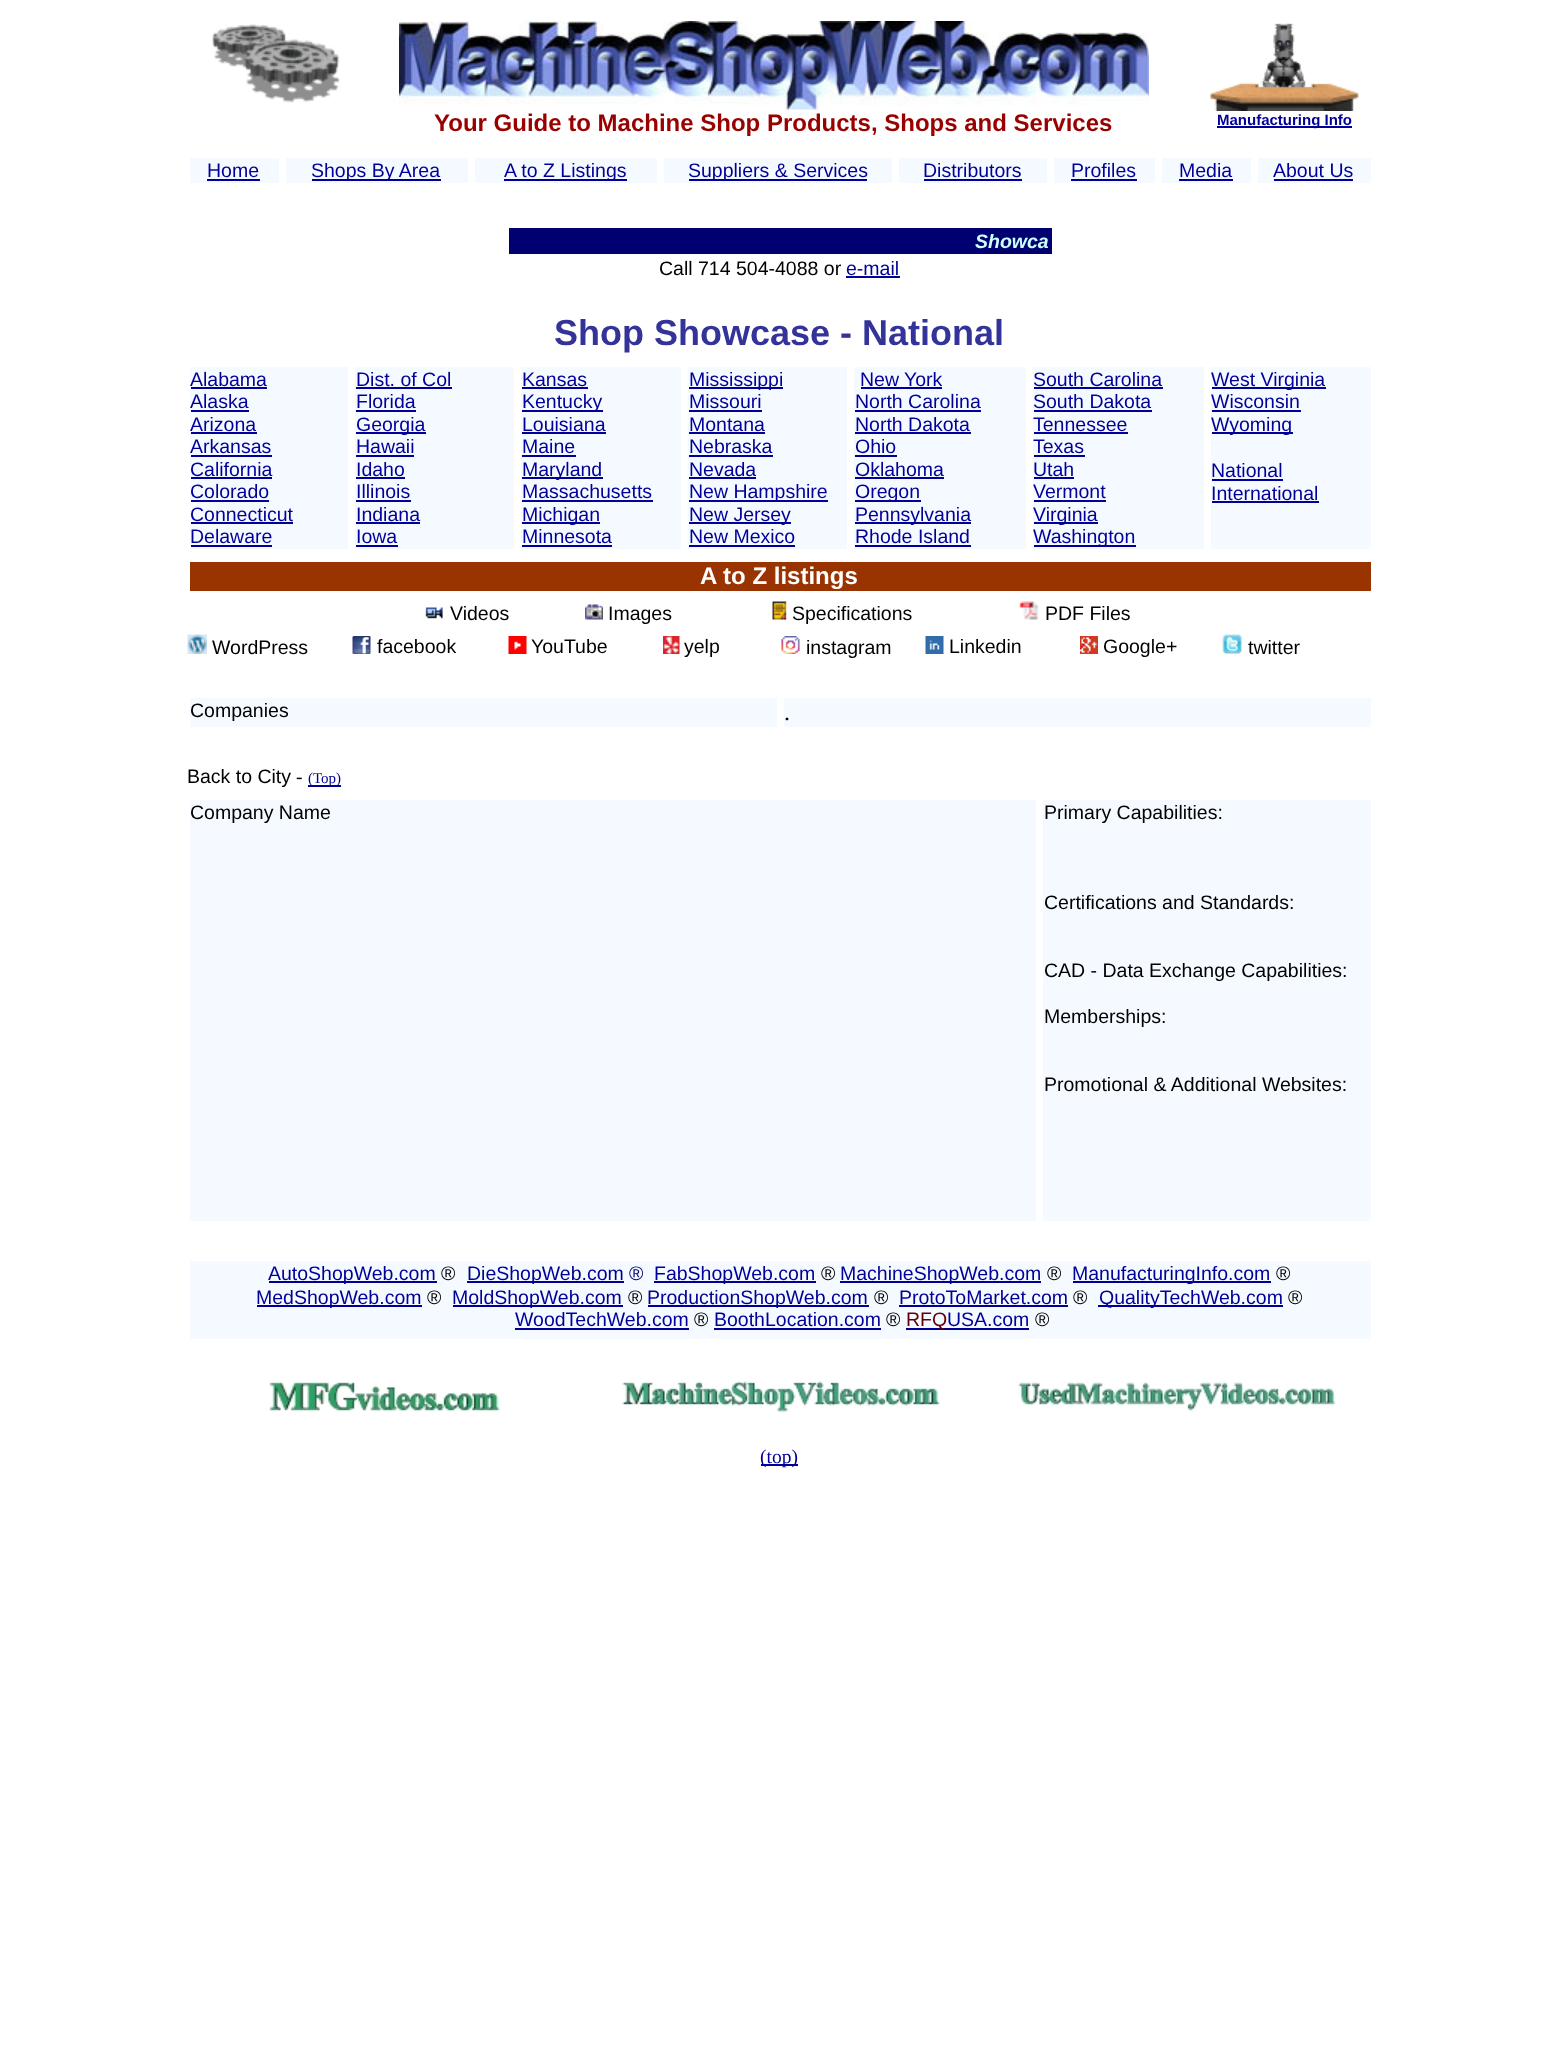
<svg xmlns="http://www.w3.org/2000/svg" width="1558" height="2067" viewBox="0 0 1558 2067">
  <rect width="100%" height="100%" fill="#fff"/>
  <image x="211" y="24" width="129" height="79" href="img/1.png"/>
  <image x="399" y="21" width="750" height="89" href="img/2.png"/>
  <image x="1210" y="22" width="149" height="89" href="img/3.png"/>
  <path d="M1217 126h135v2H1217z" fill="#009"/>
  <path d="M190 158h89v25H190z" fill="#f4faff"/>
  <path d="M207 179h53v2H207z" fill="#009"/>
  <path d="M286 158h182v25H286z" fill="#f4faff"/>
  <path d="M312 179h129v2H312z" fill="#009"/>
  <path d="M475 158h182v25H475z" fill="#f4faff"/>
  <path d="M504 179h123v2H504z" fill="#009"/>
  <path d="M664 158h228v25H664z" fill="#f4faff"/>
  <path d="M689 179h178v2H689z" fill="#009"/>
  <path d="M899 158h148v25H899z" fill="#f4faff"/>
  <path d="M924 179h98v2H924z" fill="#009"/>
  <path d="M1054 158h101v25H1054z" fill="#f4faff"/>
  <path d="M1071 179h66v2H1071z" fill="#009"/>
  <path d="M1162 158h89v25H1162z" fill="#f4faff"/>
  <path d="M1179 179h54v2H1179z" fill="#009"/>
  <path d="M1258 158h113v25H1258z" fill="#f4faff"/>
  <path d="M1274 179h79v2H1274z" fill="#009"/>
  <path d="M509 228h543v26H509z" fill="#000071"/>
  <path d="M846 276h54v2H846z" fill="#009"/>
  <path d="M190 367h158v182H190z" fill="#f4faff"/>
  <path d="M191 387h76v2H191z" fill="#009"/>
  <path d="M191 410h58v2H191z" fill="#009"/>
  <path d="M191 432h66v2H191z" fill="#009"/>
  <path d="M191 455h81v2H191z" fill="#009"/>
  <path d="M191 477h81v2H191z" fill="#009"/>
  <path d="M191 500h78v2H191z" fill="#009"/>
  <path d="M191 522h102v2H191z" fill="#009"/>
  <path d="M191 545h81v2H191z" fill="#009"/>
  <path d="M355 367h159v182H355z" fill="#f4faff"/>
  <path d="M356 387h96v2H356z" fill="#009"/>
  <path d="M356 410h60v2H356z" fill="#009"/>
  <path d="M356 432h70v2H356z" fill="#009"/>
  <path d="M356 455h58v2H356z" fill="#009"/>
  <path d="M356 477h49v2H356z" fill="#009"/>
  <path d="M356 500h55v2H356z" fill="#009"/>
  <path d="M356 522h64v2H356z" fill="#009"/>
  <path d="M356 545h42v2H356z" fill="#009"/>
  <path d="M521 367h160v182H521z" fill="#f4faff"/>
  <path d="M522 387h66v2H522z" fill="#009"/>
  <path d="M522 410h81v2H522z" fill="#009"/>
  <path d="M522 432h84v2H522z" fill="#009"/>
  <path d="M522 455h54v2H522z" fill="#009"/>
  <path d="M522 477h81v2H522z" fill="#009"/>
  <path d="M522 500h131v2H522z" fill="#009"/>
  <path d="M522 522h78v2H522z" fill="#009"/>
  <path d="M522 545h90v2H522z" fill="#009"/>
  <path d="M688 367h159v182H688z" fill="#f4faff"/>
  <path d="M689 387h94v2H689z" fill="#009"/>
  <path d="M689 410h73v2H689z" fill="#009"/>
  <path d="M689 432h76v2H689z" fill="#009"/>
  <path d="M689 455h84v2H689z" fill="#009"/>
  <path d="M689 477h67v2H689z" fill="#009"/>
  <path d="M689 500h139v2H689z" fill="#009"/>
  <path d="M689 522h102v2H689z" fill="#009"/>
  <path d="M689 545h106v2H689z" fill="#009"/>
  <path d="M854 367h172v182H854z" fill="#f4faff"/>
  <path d="M861 387h81v2H861z" fill="#009"/>
  <path d="M855 410h126v2H855z" fill="#009"/>
  <path d="M855 432h116v2H855z" fill="#009"/>
  <path d="M855 455h42v2H855z" fill="#009"/>
  <path d="M855 477h89v2H855z" fill="#009"/>
  <path d="M855 500h66v2H855z" fill="#009"/>
  <path d="M855 522h116v2H855z" fill="#009"/>
  <path d="M855 545h116v2H855z" fill="#009"/>
  <path d="M1033 367h171v182H1033z" fill="#f4faff"/>
  <path d="M1034 387h129v2H1034z" fill="#009"/>
  <path d="M1034 410h118v2H1034z" fill="#009"/>
  <path d="M1034 432h94v2H1034z" fill="#009"/>
  <path d="M1034 455h51v2H1034z" fill="#009"/>
  <path d="M1034 477h40v2H1034z" fill="#009"/>
  <path d="M1034 500h72v2H1034z" fill="#009"/>
  <path d="M1034 522h64v2H1034z" fill="#009"/>
  <path d="M1034 545h102v2H1034z" fill="#009"/>
  <path d="M1211 367h160v182H1211z" fill="#f4faff"/>
  <path d="M1212 387h114v2H1212z" fill="#009"/>
  <path d="M1212 410h89v2H1212z" fill="#009"/>
  <path d="M1212 432h81v2H1212z" fill="#009"/>
  <path d="M1212 479h71v2H1212z" fill="#009"/>
  <path d="M1212 501h107v2H1212z" fill="#009"/>
  <path d="M190 562h1181v29H190z" fill="#930"/>
  <image x="425" y="607" width="18" height="12" href="img/4.png"/>
  <image x="585" y="604" width="18" height="16" href="img/5.png"/>
  <image x="772" y="601" width="15" height="19" href="img/6.png"/>
  <image x="1019" y="601" width="20" height="19" href="img/7.png"/>
  <image x="187" y="634" width="20" height="20" href="img/8.png"/>
  <image x="352" y="636" width="19" height="18" href="img/9.png"/>
  <image x="508" y="636" width="19" height="18" href="img/10.png"/>
  <image x="663" y="636" width="17" height="18" href="img/11.png"/>
  <image x="781" y="636" width="19" height="18" href="img/12.png"/>
  <image x="925" y="636" width="19" height="18" href="img/13.png"/>
  <image x="1080" y="636" width="18" height="18" href="img/14.png"/>
  <image x="1222" y="634" width="20" height="20" href="img/15.png"/>
  <path d="M190 698h587v29H190z" fill="#f4faff"/>
  <path d="M784 698h587v29H784z" fill="#f4faff"/>
  <path d="M308 785h33v2H308z" fill="#009"/>
  <path d="M190 800h846v421H190z" fill="#f4faff"/>
  <path d="M1043 800h328v421H1043z" fill="#f4faff"/>
  <path d="M190 1261h1181v78H190z" fill="#f4faff"/>
  <path d="M269 1281h168v2H269z" fill="#009"/>
  <path d="M467 1281h157v2H467z" fill="#009"/>
  <path d="M654 1281h162v2H654z" fill="#009"/>
  <path d="M840 1281h201v2H840z" fill="#009"/>
  <path d="M1073 1281h198v2H1073z" fill="#009"/>
  <path d="M257 1305h165v2H257z" fill="#009"/>
  <path d="M453 1305h170v2H453z" fill="#009"/>
  <path d="M648 1305h221v2H648z" fill="#009"/>
  <path d="M899 1305h169v2H899z" fill="#009"/>
  <path d="M1098 1305h185v2H1098z" fill="#009"/>
  <path d="M515 1328h174v2H515z" fill="#009"/>
  <path d="M714 1328h167v2H714z" fill="#009"/>
  <path d="M906 1328h123v2H906z" fill="#009"/>
  <image x="269" y="1381" width="231" height="31" href="img/16.png"/>
  <image x="622" y="1381" width="318" height="31" href="img/17.png"/>
  <image x="1018" y="1381" width="318" height="30" href="img/18.png"/>
  <path d="M761 1464h37v2H761z" fill="#009"/>
  <text x="434" y="131" font-family="Liberation Sans" font-size="24" font-weight="bold" fill="#900">Your Guide to Machine Shop Products, Shops and Services</text>
  <text x="1217" y="125" font-family="Liberation Sans" font-size="15" font-weight="bold" fill="#009">Manufacturing Info</text>
  <g font-family="Liberation Sans" font-size="19.5" fill="#009">
    <text x="207" y="177">Home</text>
    <text x="311" y="177">Shops By Area</text>
    <text x="504" y="177">A to Z Listings</text>
    <text x="688" y="177">Suppliers &amp; Services</text>
    <text x="923" y="177">Distributors</text>
    <text x="1071" y="177">Profiles</text>
    <text x="1179" y="177">Media</text>
    <text x="1273" y="177">About Us</text>
  </g>
  <text x="975" y="248" font-family="Liberation Sans" font-size="19.5" font-weight="bold" font-style="italic" fill="#cff">Showca</text>
  <text x="659" y="275" font-family="Liberation Sans" font-size="19.5" fill="#000">Call 714 504-4088 or</text>
  <text x="846" y="275" font-family="Liberation Sans" font-size="19.5" fill="#009">e-mail</text>
  <text x="554" y="345" font-family="Liberation Sans" font-size="36" font-weight="bold" fill="#339">Shop Showcase - National</text>
  <g font-family="Liberation Sans" font-size="19.5" fill="#009">
    <text x="190" y="386">Alabama</text>
    <text x="190" y="408">Alaska</text>
    <text x="190" y="431">Arizona</text>
    <text x="190" y="453">Arkansas</text>
    <text x="190" y="476">California</text>
    <text x="190" y="498">Colorado</text>
    <text x="190" y="521">Connecticut</text>
    <text x="190" y="543">Delaware</text>
    <text x="356" y="386">Dist. of Col</text>
    <text x="356" y="408">Florida</text>
    <text x="356" y="431">Georgia</text>
    <text x="356" y="453">Hawaii</text>
    <text x="356" y="476">Idaho</text>
    <text x="356" y="498">Illinois</text>
    <text x="356" y="521">Indiana</text>
    <text x="356" y="543">Iowa</text>
    <text x="522" y="386">Kansas</text>
    <text x="522" y="408">Kentucky</text>
    <text x="522" y="431">Louisiana</text>
    <text x="522" y="453">Maine</text>
    <text x="522" y="476">Maryland</text>
    <text x="522" y="498">Massachusetts</text>
    <text x="522" y="521">Michigan</text>
    <text x="522" y="543">Minnesota</text>
    <text x="689" y="386">Mississippi</text>
    <text x="689" y="408">Missouri</text>
    <text x="689" y="431">Montana</text>
    <text x="689" y="453">Nebraska</text>
    <text x="689" y="476">Nevada</text>
    <text x="689" y="498">New Hampshire</text>
    <text x="689" y="521">New Jersey</text>
    <text x="689" y="543">New Mexico</text>
    <text x="860" y="386">New</text>
    <text x="904" y="386">York</text>
    <text x="855" y="408">North Carolina</text>
    <text x="855" y="431">North Dakota</text>
    <text x="855" y="453">Ohio</text>
    <text x="855" y="476">Oklahoma</text>
    <text x="855" y="498">Oregon</text>
    <text x="855" y="521">Pennsylvania</text>
    <text x="855" y="543">Rhode Island</text>
    <text x="1033" y="386">South Carolina</text>
    <text x="1033" y="408">South Dakota</text>
    <text x="1033" y="431">Tennessee</text>
    <text x="1033" y="453">Texas</text>
    <text x="1033" y="476">Utah</text>
    <text x="1033" y="498">Vermont</text>
    <text x="1033" y="521">Virginia</text>
    <text x="1033" y="543">Washington</text>
    <text x="1211" y="386">West Virginia</text>
    <text x="1211" y="408">Wisconsin</text>
    <text x="1211" y="431">Wyoming</text>
    <text x="1211" y="477">National</text>
    <text x="1211" y="500">International</text>
  </g>
  <text x="700" y="584" font-family="Liberation Sans" font-size="24" font-weight="bold" fill="#fff">A to Z listings</text>
  <g font-family="Liberation Sans" font-size="19.5" fill="#000">
    <text x="450" y="620">Videos</text>
    <text x="608" y="620">Images</text>
    <text x="792" y="620">Specifications</text>
    <text x="1045" y="620">PDF Files</text>
    <text x="212" y="654">WordPress</text>
    <text x="377" y="653">facebook</text>
    <text x="531" y="653">YouTube</text>
    <text x="684" y="653">yelp</text>
    <text x="806" y="654">instagram</text>
    <text x="949" y="653">Linkedin</text>
    <text x="1103" y="653">Google+</text>
    <text x="1248" y="654">twitter</text>
    <text x="190" y="717">Companies</text>
  </g>
  <text x="784" y="720" font-family="Liberation Serif" font-size="24" fill="#000">.</text>
  <text x="187" y="783" font-family="Liberation Sans" font-size="19.5" fill="#000">Back to City</text>
  <text x="296" y="783" font-family="Liberation Serif" font-size="19.5" fill="#000">-</text>
  <text x="308" y="783" font-family="Liberation Serif" font-size="15" fill="#009">(Top)</text>
  <g font-family="Liberation Sans" font-size="19.5" fill="#000">
    <text x="190" y="819">Company Name</text>
    <text x="1044" y="819">Primary Capabilities:</text>
    <text x="1044" y="909">Certifications and Standards:</text>
    <text x="1044" y="977">CAD - Data Exchange Capabilities:</text>
    <text x="1044" y="1023">Memberships:</text>
    <text x="1044" y="1091">Promotional &amp; Additional Websites:</text>
  </g>
  <text x="268" y="1280" font-family="Liberation Sans" font-size="19.5" fill="#009">AutoShopWeb.com</text>
  <text x="441" y="1280" font-family="Liberation Sans" font-size="19.5" fill="#000">®</text>
  <text x="467" y="1280" font-family="Liberation Sans" font-size="19.5" fill="#009">DieShopWeb.com</text>
  <text x="629" y="1280" font-family="Liberation Sans" font-size="19.5" fill="#006">®</text>
  <text x="654" y="1280" font-family="Liberation Sans" font-size="19.5" fill="#009">FabShopWeb.com</text>
  <text x="821" y="1280" font-family="Liberation Sans" font-size="19.5" fill="#000">®</text>
  <text x="840" y="1280" font-family="Liberation Sans" font-size="19.5" fill="#009">MachineShopWeb.com</text>
  <text x="1047" y="1280" font-family="Liberation Sans" font-size="19.5" fill="#000">®</text>
  <text x="1072" y="1280" font-family="Liberation Sans" font-size="19.5" fill="#009">ManufacturingInfo.com</text>
  <text x="1276" y="1280" font-family="Liberation Sans" font-size="19.5" fill="#000">®</text>
  <text x="256" y="1304" font-family="Liberation Sans" font-size="19.5" fill="#009">MedShopWeb.com</text>
  <text x="427" y="1304" font-family="Liberation Sans" font-size="19.5" fill="#000">®</text>
  <text x="452" y="1304" font-family="Liberation Sans" font-size="19.5" fill="#009">MoldShopWeb.com</text>
  <text x="628" y="1304" font-family="Liberation Sans" font-size="19.5" fill="#000">®</text>
  <text x="647" y="1304" font-family="Liberation Sans" font-size="19.5" fill="#009">ProductionShopWeb.com</text>
  <text x="874" y="1304" font-family="Liberation Sans" font-size="19.5" fill="#000">®</text>
  <text x="899" y="1304" font-family="Liberation Sans" font-size="19.5" fill="#009">ProtoToMarket.com</text>
  <text x="1073" y="1304" font-family="Liberation Sans" font-size="19.5" fill="#000">®</text>
  <text x="1099" y="1304" font-family="Liberation Sans" font-size="19.5" fill="#009">QualityTechWeb.com</text>
  <text x="1288" y="1304" font-family="Liberation Sans" font-size="19.5" fill="#000">®</text>
  <text x="515" y="1326" font-family="Liberation Sans" font-size="19.5" fill="#009">WoodTechWeb.com</text>
  <text x="694" y="1326" font-family="Liberation Sans" font-size="19.5" fill="#000">®</text>
  <text x="714" y="1326" font-family="Liberation Sans" font-size="19.5" fill="#009">BoothLocation.com</text>
  <text x="886" y="1326" font-family="Liberation Sans" font-size="19.5" fill="#000">®</text>
  <text x="906" y="1326" font-family="Liberation Sans" font-size="19.5" fill="#600">RFQ</text>
  <text x="947" y="1326" font-family="Liberation Sans" font-size="19.5" fill="#009">USA.com</text>
  <text x="1035" y="1326" font-family="Liberation Sans" font-size="19.5" fill="#000">®</text>
  <text x="760" y="1463" font-family="Liberation Serif" font-size="19.5" fill="#009">(top)</text>
</svg>
